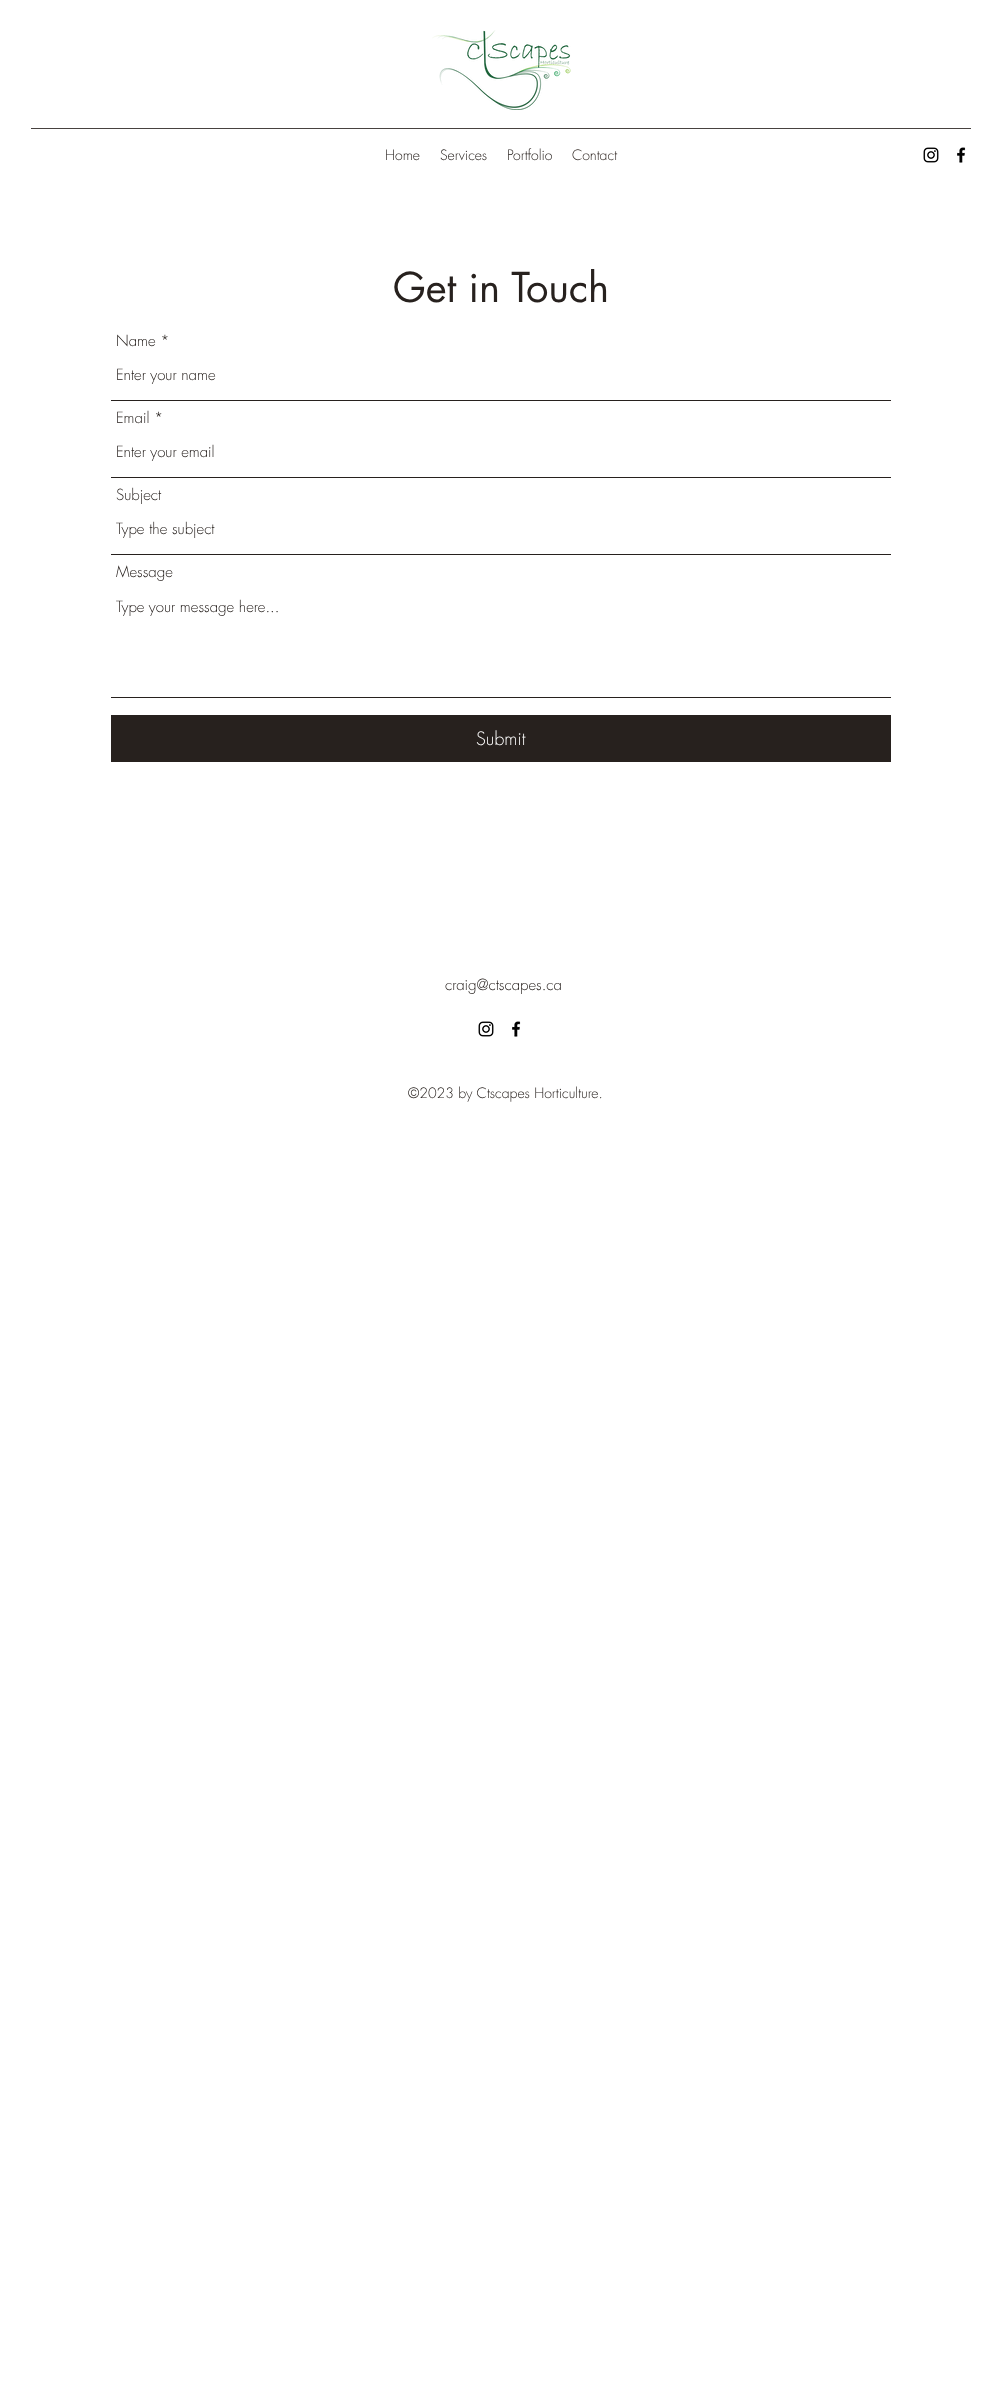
<svg xmlns="http://www.w3.org/2000/svg" width="1002" height="2398" viewBox="0 0 1002 2398">
  <rect width="100%" height="100%" fill="#fff"/>
  <image x="432" y="30" width="139" height="80" href="img/1.png"/>
  <path d="M31 128h940v1H31z" fill="#474240"/>
  <image x="923" y="147" width="16" height="16" href="img/2.png"/>
  <image x="957" y="147" width="9" height="16" href="img/3.png"/>
  <path d="M111 400h780v1H111z" fill="#27211e"/>
  <path d="M111 477h780v1H111z" fill="#27211e"/>
  <path d="M111 554h780v1H111z" fill="#27211e"/>
  <path d="M111 697h780v1H111z" fill="#27211e"/>
  <path d="M111 715h780v47H111z" fill="#27211e"/>
  <image x="478" y="1021" width="16" height="16" href="img/2.png"/>
  <image x="512" y="1021" width="9" height="16" href="img/3.png"/>
  <g font-family="futura" font-size="14" font-weight="300" fill="#27211e">
    <text x="385" y="160">Home</text>
    <text x="440" y="160">Services</text>
    <text x="507" y="160">Portfolio</text>
  </g>
  <text x="572" y="160" font-family="futura" font-size="14" font-weight="300" fill="#312824">Contact</text>
  <text x="393" y="302" font-family="futura" font-size="40" fill="#27211e">Get in Touch</text>
  <g font-family="futura" font-size="15" font-weight="300" fill="#27211e">
    <text x="116" y="346">Name *</text>
    <text x="116" y="380">Enter your name</text>
    <text x="116" y="423">Email *</text>
    <text x="116" y="457">Enter your email</text>
    <text x="116" y="500">Subject</text>
    <text x="116" y="534">Type the subject</text>
    <text x="116" y="577">Message</text>
    <text x="116" y="612">Type your message here...</text>
  </g>
  <text x="476" y="745" font-family="futura" font-size="18" font-weight="300" fill="#fff">Submit</text>
  <text x="445" y="990" font-family="futura" font-size="15" font-weight="300" fill="#27211e">craig@ctscapes.ca</text>
  <text x="408" y="1098" font-family="futura" font-size="14" font-weight="300" fill="#27211e">©2023 by Ctscapes Horticulture.</text>
</svg>
